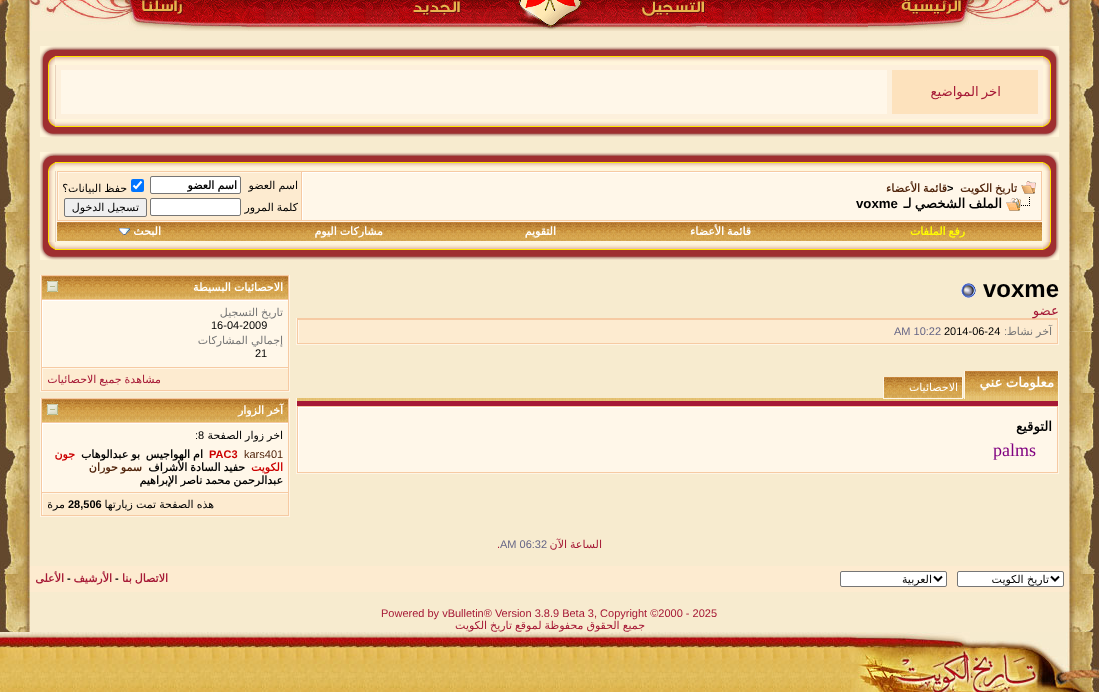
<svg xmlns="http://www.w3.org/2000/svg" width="1099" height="692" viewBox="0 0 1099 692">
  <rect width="100%" height="100%" fill="#f7ebcf"/>
  <image x="962" y="0" width="137" height="31" href="img/1.png"/>
  <image x="902" y="0" width="60" height="31" href="img/2.png"/>
  <image x="868" y="0" width="34" height="31" href="img/3.png"/>
  <image x="707" y="0" width="161" height="31" href="img/4.png"/>
  <image x="641" y="0" width="66" height="31" href="img/5.png"/>
  <image x="461" y="0" width="180" height="31" href="img/6.png"/>
  <image x="411" y="0" width="50" height="31" href="img/7.png"/>
  <image x="249" y="0" width="162" height="31" href="img/8.png"/>
  <image x="185" y="0" width="64" height="31" href="img/9.png"/>
  <image x="139" y="0" width="46" height="31" href="img/10.png"/>
  <image x="0" y="0" width="139" height="31" href="img/11.png"/>
  <image x="1069" y="31" width="30" height="601" href="img/12.png"/>
  <image x="1070" y="331" width="29" height="1" href="img/13.png"/>
  <image x="1043" y="46" width="16" height="19" href="img/14.png"/>
  <image x="55" y="46" width="988" height="19" href="img/15.png"/>
  <image x="40" y="46" width="15" height="19" href="img/16.png"/>
  <image x="1043" y="65" width="16" height="54" href="img/17.png"/>
  <path d="M56 65h987v54H56z" fill="#fdf0dc"/>
  <path d="M892 70h146v44H892z" fill="#fde2bd"/>
  <path d="M61 70h826v44H61z" fill="#fff7e9"/>
  <image x="40" y="65" width="16" height="54" href="img/18.png"/>
  <image x="1043" y="119" width="16" height="18" href="img/19.png"/>
  <image x="55" y="119" width="988" height="18" href="img/20.png"/>
  <image x="40" y="119" width="15" height="18" href="img/21.png"/>
  <image x="1043" y="152" width="16" height="19" href="img/14.png"/>
  <image x="55" y="152" width="988" height="19" href="img/15.png"/>
  <image x="40" y="152" width="15" height="19" href="img/16.png"/>
  <image x="1043" y="171" width="16" height="71" href="img/22.png"/>
  <path d="M57 171h985v50H57z" fill="#f6caa3"/>
  <path d="M1042 171h1v71H1042z" fill="#fef5e5"/>
  <path d="M56 221h987v1H56z" fill="#fef5e5"/>
  <path d="M56 171h1v51H56z" fill="#fef5e5"/>
  <path d="M303 173h738v47H303z" fill="#fff7e9"/>
  <path d="M302 172h739v1H302z" fill="#fff"/>
  <path d="M302 172h1v48H302z" fill="#fff"/>
  <image x="1021" y="181" width="15" height="13" href="img/23.png"/>
  <image x="1006" y="197" width="24" height="14" href="img/24.png"/>
  <path d="M59 173h242v47H59z" fill="#fdebd0"/>
  <path d="M58 172h243v1H58z" fill="#fff7e9"/>
  <path d="M58 172h1v48H58z" fill="#fff7e9"/>
  <rect x="150.5" y="176.5" width="90" height="17" rx="1.5" fill="#fff" stroke="#767676"/>
  <rect x="131" y="179" width="13" height="13" rx="2" fill="#0075ff"/>
  <path d="M133.5 185.5L136 188L141.5 181.5" fill="none" stroke="#fff" stroke-width="2.1"/>
  <rect x="150.5" y="198.5" width="90" height="17" rx="1.5" fill="#fff" stroke="#767676"/>
  <rect x="64.5" y="198.5" width="82" height="18" rx="1.5" fill="#efefef" stroke="#767676"/>
  <path d="M56 241h987v1H56z" fill="#fef5e5"/>
  <path d="M56 222h1v20H56z" fill="#fef5e5"/>
  <image x="834" y="222" width="208" height="19" href="img/25.png"/>
  <image x="608" y="222" width="226" height="19" href="img/26.png"/>
  <image x="473" y="222" width="135" height="19" href="img/27.png"/>
  <image x="223" y="222" width="250" height="19" href="img/28.png"/>
  <image x="57" y="222" width="166" height="19" href="img/29.png"/>
  <image x="119" y="228" width="11" height="7" href="img/30.png"/>
  <image x="40" y="171" width="16" height="71" href="img/31.png"/>
  <image x="1043" y="242" width="16" height="18" href="img/19.png"/>
  <image x="55" y="242" width="988" height="18" href="img/20.png"/>
  <image x="40" y="242" width="15" height="18" href="img/21.png"/>
  <image x="961" y="283" width="15" height="15" href="img/32.png"/>
  <path d="M297 318h761v26H297z" fill="#f6caa3"/>
  <path d="M1058 318h1v27H1058z" fill="#fef5e5"/>
  <path d="M296 344h763v1H296z" fill="#fef5e5"/>
  <path d="M296 318h1v27H296z" fill="#fef5e5"/>
  <path d="M299 320h758v23H299z" fill="#fdebd0"/>
  <path d="M298 320h1v23H298z" fill="#fff7e9"/>
  <path d="M296 401h763v5H296z" fill="#a61936"/>
  <image x="297" y="398" width="761" height="3" href="img/33.png"/>
  <path d="M1058 371h1v103H1058z" fill="#fef5e5"/>
  <path d="M296 398h1v8H296z" fill="#fef5e5"/>
  <image x="965" y="371" width="93" height="28" href="img/34.png"/>
  <path d="M964 371h1v28H964z" fill="#fef5e5"/>
  <image x="884" y="377" width="78" height="21" href="img/35.png"/>
  <path d="M962 377h1v22H962z" fill="#fef5e5"/>
  <path d="M883 398h80v1H883z" fill="#fef5e5"/>
  <path d="M883 377h1v22H883z" fill="#fef5e5"/>
  <path d="M297 406h761v67H297z" fill="#f6caa3"/>
  <path d="M296 473h763v1H296z" fill="#fef5e5"/>
  <path d="M296 406h1v68H296z" fill="#fef5e5"/>
  <path d="M299 408h758v64H299z" fill="#fff7e9"/>
  <path d="M298 407h759v1H298z" fill="#fff"/>
  <path d="M298 407h1v65H298z" fill="#fff"/>
  <path d="M41 275h248v116H41z" fill="#f6caa3"/>
  <path d="M289 275h1v117H289z" fill="#fef5e5"/>
  <path d="M40 391h250v1H40z" fill="#fef5e5"/>
  <path d="M40 275h1v117H40z" fill="#fef5e5"/>
  <image x="42" y="276" width="246" height="23" href="img/36.png"/>
  <image x="47" y="281" width="11" height="11" href="img/37.png"/>
  <path d="M43 301h245v66H43z" fill="#fff7e9"/>
  <path d="M42 300h246v1H42z" fill="#fff"/>
  <path d="M42 300h1v67H42z" fill="#fff"/>
  <path d="M43 369h245v21H43z" fill="#fdebd0"/>
  <path d="M42 368h246v1H42z" fill="#fff7e9"/>
  <path d="M42 368h1v22H42z" fill="#fff7e9"/>
  <path d="M41 398h248v118H41z" fill="#f6caa3"/>
  <path d="M289 398h1v119H289z" fill="#fef5e5"/>
  <path d="M40 516h250v1H40z" fill="#fef5e5"/>
  <path d="M40 398h1v119H40z" fill="#fef5e5"/>
  <image x="42" y="399" width="246" height="23" href="img/36.png"/>
  <image x="47" y="404" width="11" height="11" href="img/37.png"/>
  <path d="M43 424h245v68H43z" fill="#fff7e9"/>
  <path d="M42 423h246v1H42z" fill="#fff"/>
  <path d="M42 423h1v69H42z" fill="#fff"/>
  <path d="M43 494h245v21H43z" fill="#fdebd0"/>
  <path d="M42 493h246v1H42z" fill="#fff7e9"/>
  <path d="M42 493h1v22H42z" fill="#fff7e9"/>
  <path d="M30 566h1039v26H30z" fill="#fdebd0"/>
  <rect x="957.5" y="571.5" width="106" height="15" rx="1.5" fill="#fff" stroke="#767676"/>
  <path d="M1051 576.5L1055 580.5L1059 576.5" fill="none" stroke="#000" stroke-width="2"/>
  <rect x="840.5" y="571.5" width="106" height="15" rx="1.5" fill="#fff" stroke="#767676"/>
  <path d="M934 576.5L938 580.5L942 576.5" fill="none" stroke="#000" stroke-width="2"/>
  <image x="0" y="31" width="30" height="601" href="img/38.png"/>
  <image x="0" y="331" width="30" height="1" href="img/39.png"/>
  <image x="850" y="632" width="249" height="60" href="img/40.png"/>
  <image x="671" y="632" width="179" height="60" href="img/41.png"/>
  <image x="377" y="632" width="294" height="60" href="img/42.png"/>
  <image x="189" y="632" width="188" height="60" href="img/43.png"/>
  <image x="213" y="640" width="6" height="23" href="img/44.png"/>
  <image x="0" y="632" width="189" height="60" href="img/45.png"/>
  <text x="1001" y="96" word-spacing="-1" font-family="DejaVu Sans" font-size="13.25" direction="rtl" fill="#a61936">اخر المواضيع</text>
  <text x="1017" y="192" word-spacing="-0.5" font-family="DejaVu Sans" font-size="11" font-weight="bold" direction="rtl" fill="#51250c">تاريخ الكويت</text>
  <text x="947" y="192" font-family="Liberation Sans" font-size="11" font-weight="bold" fill="#000">&gt;</text>
  <text x="947" y="192" word-spacing="-0.5" font-family="DejaVu Sans" font-size="11" font-weight="bold" direction="rtl" fill="#51250c">قائمة الأعضاء</text>
  <text x="1002" y="208" word-spacing="-1" font-family="DejaVu Sans" font-size="13.25" font-weight="bold" direction="rtl" fill="#000">الملف الشخصي لـ</text>
  <text x="856" y="208" font-family="Liberation Sans" font-size="13.25" font-weight="bold" fill="#000">voxme</text>
  <text x="298" y="189" word-spacing="-0.5" font-family="DejaVu Sans" font-size="11" direction="rtl" fill="#000">اسم العضو</text>
  <text x="237" y="189" word-spacing="-0.5" font-family="DejaVu Sans" font-size="11" font-weight="bold" direction="rtl" fill="#000">اسم العضو</text>
  <g font-family="DejaVu Sans" font-size="11" direction="rtl" fill="#000">
    <text x="127" y="192" word-spacing="-0.5">حفظ البيانات؟</text>
    <text x="298" y="211" word-spacing="-0.5">كلمة المرور</text>
    <text x="139" y="211" word-spacing="-0.5">تسجيل الدخول</text>
  </g>
  <text x="965" y="235" word-spacing="-0.5" font-family="DejaVu Sans" font-size="11" font-weight="bold" direction="rtl" fill="#ff0">رفع الملفات</text>
  <g font-family="DejaVu Sans" font-size="11" font-weight="bold" direction="rtl" fill="#fff">
    <text x="751" y="235" word-spacing="-0.5">قائمة الأعضاء</text>
    <text x="556" y="235">التقويم</text>
    <text x="383" y="235" word-spacing="-0.5">مشاركات اليوم</text>
    <text x="161" y="235">البحث</text>
  </g>
  <text x="983" y="297" font-family="Liberation Sans" font-size="24" font-weight="bold" fill="#000">voxme</text>
  <text x="1059" y="315" font-family="DejaVu Sans" font-size="13.25" direction="rtl" fill="#a61936">عضو</text>
  <text x="1052" y="335" word-spacing="-0.5" font-family="DejaVu Sans" font-size="11" direction="rtl" fill="#777">آخر نشاط</text>
  <text x="1007" y="335" font-family="Liberation Sans" font-size="11" direction="rtl" fill="#777">:</text>
  <text x="944" y="335" font-family="Liberation Sans" font-size="11" fill="#000">2014-06-24</text>
  <text x="894" y="335" font-family="Liberation Sans" font-size="11" fill="#666686">AM 10:22</text>
  <text x="1054" y="387" word-spacing="-1" font-family="DejaVu Sans" font-size="13.25" font-weight="bold" direction="rtl" fill="#fff">معلومات عني</text>
  <text x="958" y="391" font-family="DejaVu Sans" font-size="11" direction="rtl" fill="#fff">الاحصائيات</text>
  <text x="1052" y="431" font-family="DejaVu Sans" font-size="13.25" font-weight="bold" direction="rtl" fill="#000">التوقيع</text>
  <text x="993" y="456" font-family="Liberation Serif" font-size="18" fill="#800080">palms</text>
  <text x="283" y="291" word-spacing="-0.5" font-family="DejaVu Sans" font-size="11" font-weight="bold" direction="rtl" fill="#fff">الاحصائيات البسيطة</text>
  <text x="283" y="316" word-spacing="-0.5" font-family="DejaVu Sans" font-size="11" direction="rtl" fill="#777">تاريخ التسجيل</text>
  <text x="211" y="329" font-family="Liberation Sans" font-size="11" fill="#000">16-04-2009</text>
  <text x="283" y="344" word-spacing="-0.5" font-family="DejaVu Sans" font-size="11" direction="rtl" fill="#777">إجمالي المشاركات</text>
  <text x="255" y="357" font-family="Liberation Sans" font-size="11" fill="#000">21</text>
  <text x="161" y="383" word-spacing="-0.5" font-family="DejaVu Sans" font-size="11" direction="rtl" fill="#a61936">مشاهدة جميع الاحصائيات</text>
  <text x="283" y="414" word-spacing="-0.5" font-family="DejaVu Sans" font-size="11" font-weight="bold" direction="rtl" fill="#fff">آخر الزوار</text>
  <text x="283" y="439" word-spacing="-0.5" font-family="DejaVu Sans" font-size="11" direction="rtl" fill="#000">اخر زوار الصفحة</text>
  <text x="195" y="439" font-family="Liberation Sans" font-size="11" fill="#000">:8</text>
  <text x="244" y="458" font-family="Liberation Sans" font-size="11" fill="#51250c">kars401</text>
  <text x="209" y="458" font-family="Liberation Sans" font-size="11" font-weight="bold" fill="#c00">PAC3</text>
  <g font-family="DejaVu Sans" font-size="11" font-weight="bold" direction="rtl" fill="#000">
    <text x="203" y="458" word-spacing="-0.5">ام الهواجيس</text>
    <text x="140" y="458" word-spacing="-0.5">بو عبدالوهاب</text>
  </g>
  <g font-family="DejaVu Sans" font-size="11" font-weight="bold" direction="rtl" fill="#c00">
    <text x="75" y="458">جون</text>
    <text x="283" y="471">الكويت</text>
  </g>
  <text x="245" y="471" word-spacing="-0.5" font-family="DejaVu Sans" font-size="11" font-weight="bold" direction="rtl" fill="#000">حفيد السادة الأشراف</text>
  <text x="142" y="471" word-spacing="-0.5" font-family="DejaVu Sans" font-size="11" font-weight="bold" direction="rtl" fill="#51250c">سمو حوران</text>
  <text x="283" y="484" word-spacing="-0.5" font-family="DejaVu Sans" font-size="11" font-weight="bold" direction="rtl" fill="#000">عبدالرحمن محمد ناصر الإبراهيم</text>
  <text x="214" y="508" word-spacing="-0.5" font-family="DejaVu Sans" font-size="11" direction="rtl" fill="#000">هذه الصفحة تمت زيارتها</text>
  <text x="68" y="508" font-family="Liberation Sans" font-size="11" font-weight="bold" fill="#000">28,506</text>
  <text x="65" y="508" font-family="DejaVu Sans" font-size="11" direction="rtl" fill="#000">مرة</text>
  <text x="602" y="548" word-spacing="-0.5" font-family="DejaVu Sans" font-size="11" direction="rtl" fill="#a61936">الساعة الآن</text>
  <text x="500" y="548" font-family="Liberation Sans" font-size="11" fill="#666686">AM 06:32</text>
  <text x="497" y="548" font-family="Liberation Sans" font-size="11" fill="#a61936">.</text>
  <g font-family="DejaVu Sans" font-size="11" direction="rtl" fill="#000">
    <text x="1049" y="583">تاريخ الكويت</text>
    <text x="932" y="583">العربية</text>
  </g>
  <text x="168" y="582" word-spacing="-0.5" font-family="DejaVu Sans" font-size="11" font-weight="bold" direction="rtl" fill="#a61936">الاتصال بنا</text>
  <text x="115" y="582" font-family="Liberation Sans" font-size="11" font-weight="bold" fill="#000">-</text>
  <text x="112" y="582" font-family="DejaVu Sans" font-size="11" font-weight="bold" direction="rtl" fill="#a61936">الأرشيف</text>
  <text x="67" y="582" font-family="Liberation Sans" font-size="11" font-weight="bold" fill="#000">-</text>
  <text x="64" y="582" font-family="DejaVu Sans" font-size="11" font-weight="bold" direction="rtl" fill="#a61936">الأعلى</text>
  <text x="381" y="617" font-family="Liberation Sans" font-size="11" fill="#a61936">Powered by vBulletin® Version 3.8.9 Beta 3, Copyright ©2000 - 2025</text>
  <text x="645" y="629" word-spacing="-0.5" font-family="DejaVu Sans" font-size="11" direction="rtl" fill="#a61936">جميع الحقوق محفوظة لموقع تاريخ الكويت</text>
</svg>
